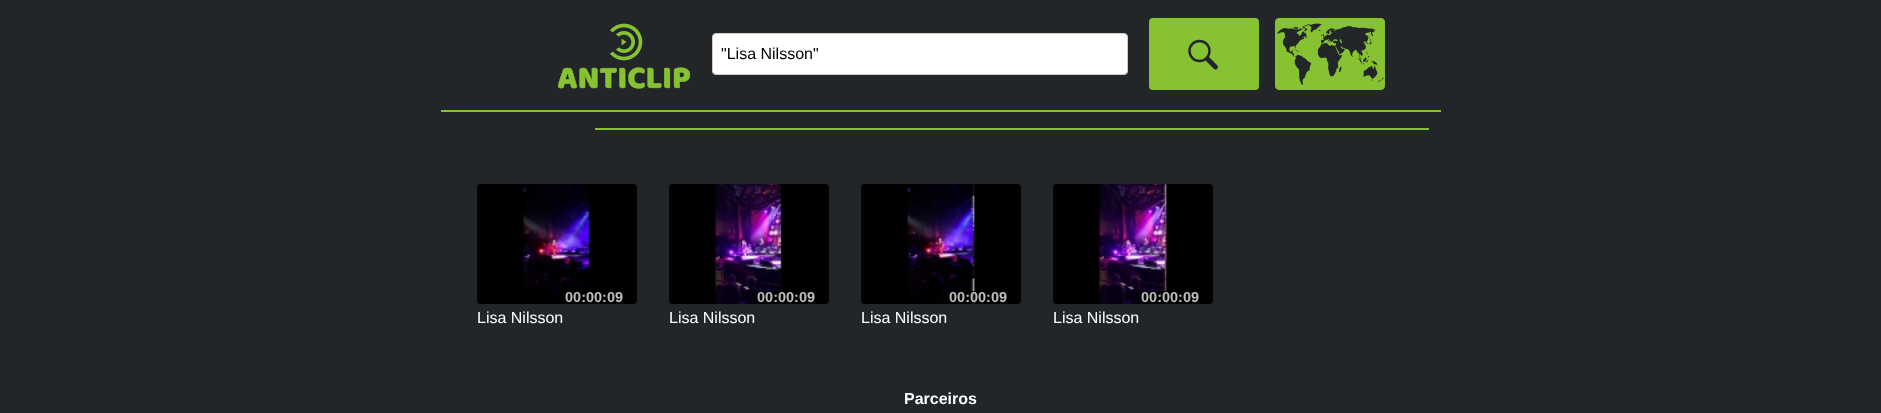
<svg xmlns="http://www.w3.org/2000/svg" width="1881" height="413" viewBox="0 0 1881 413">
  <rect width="100%" height="100%" fill="#222629"/>
  <image x="557" y="23" width="134" height="66" href="img/1.png"/>
  <rect x="712.5" y="33.5" width="415" height="41" rx="3.5" fill="#fff" stroke="#ccc"/>
  <rect x="1149" y="18" width="110" height="72" rx="4" fill="#86c232"/>
  <circle cx="1199.5" cy="51" r="10" fill="none" stroke="#222629" stroke-width="2.4"/>
  <path d="M1207.5 59L1215.5 67" fill="none" stroke="#222629" stroke-width="4.8" stroke-linecap="round"/>
  <image x="1275" y="18" width="110" height="72" href="img/2.png"/>
  <path d="M441 110h1000v2H441z" fill="#86c232"/>
  <path d="M595 128h834v2H595z" fill="#86c232"/>
  <image x="477" y="184" width="160" height="120" href="img/3.png"/>
  <path d="M565 291H623C625 291 627 293 627 295V304H561V295C561 293 563 291 565 291Z" fill="#000000bf"/>
  <image x="669" y="184" width="160" height="120" href="img/4.png"/>
  <path d="M757 291H815C817 291 819 293 819 295V304H753V295C753 293 755 291 757 291Z" fill="#000000bf"/>
  <image x="861" y="184" width="160" height="120" href="img/5.png"/>
  <path d="M949 291H1007C1009 291 1011 293 1011 295V304H945V295C945 293 947 291 949 291Z" fill="#000000bf"/>
  <image x="1053" y="184" width="160" height="120" href="img/6.png"/>
  <path d="M1141 291H1199C1201 291 1203 293 1203 295V304H1137V295C1137 293 1139 291 1141 291Z" fill="#000000bf"/>
  <text x="721" y="59" font-family="Liberation Sans" font-size="16" fill="#000">"Lisa Nilsson"</text>
  <text x="565" y="302" font-family="Liberation Sans" font-size="14.5" font-weight="bold" fill="#bfbfbf">00:00:09</text>
  <text x="477" y="323" font-family="Liberation Sans" font-size="16" fill="#fff">Lisa Nilsson</text>
  <text x="757" y="302" font-family="Liberation Sans" font-size="14.5" font-weight="bold" fill="#bfbfbf">00:00:09</text>
  <text x="669" y="323" font-family="Liberation Sans" font-size="16" fill="#fff">Lisa Nilsson</text>
  <text x="949" y="302" font-family="Liberation Sans" font-size="14.5" font-weight="bold" fill="#bfbfbf">00:00:09</text>
  <text x="861" y="323" font-family="Liberation Sans" font-size="16" fill="#fff">Lisa Nilsson</text>
  <text x="1141" y="302" font-family="Liberation Sans" font-size="14.5" font-weight="bold" fill="#bfbfbf">00:00:09</text>
  <text x="1053" y="323" font-family="Liberation Sans" font-size="16" fill="#fff">Lisa Nilsson</text>
  <text x="904" y="404" font-family="Liberation Sans" font-size="16" font-weight="bold" fill="#fff">Parceiros</text>
</svg>
